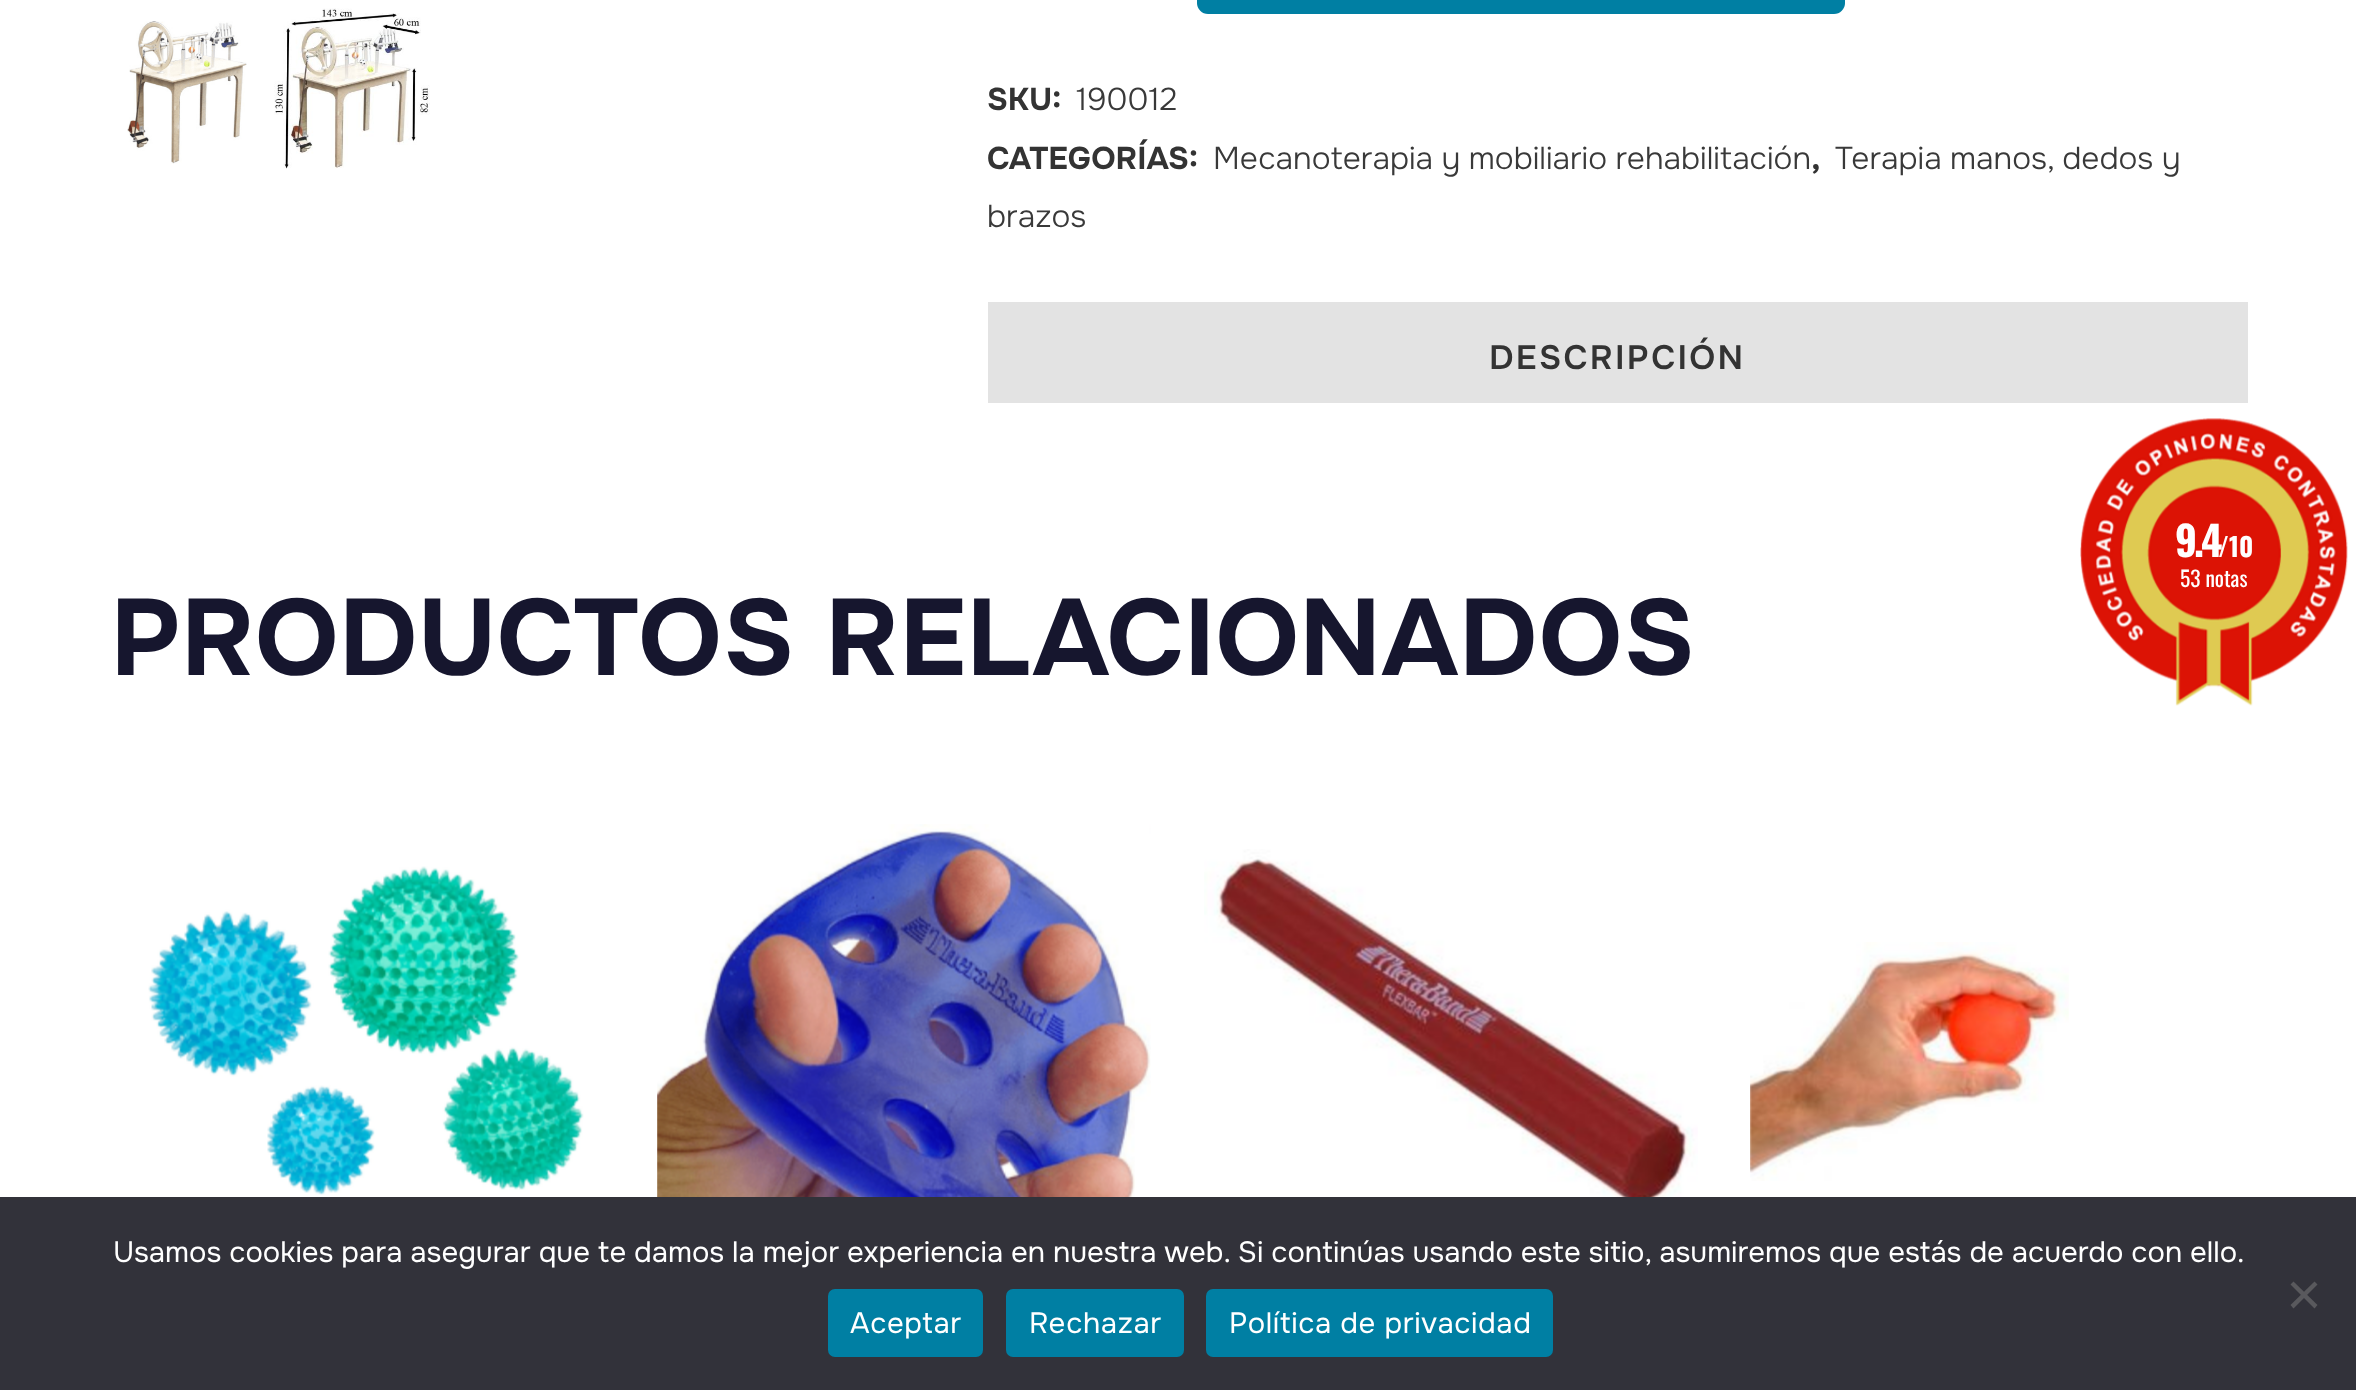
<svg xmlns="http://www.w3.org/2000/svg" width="2356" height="1390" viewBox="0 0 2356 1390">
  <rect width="100%" height="100%" fill="#fff"/>
  <image x="127" y="21" width="120" height="143" href="img/1.png"/>
  <image x="274" y="8" width="156" height="161" href="img/2.png"/>
  <rect x="1197" y="-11" width="648" height="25" rx="11" fill="#007fa3"/>
  <path d="M988 302h1260v101H988z" fill="#e3e3e3"/>
  <image x="148" y="866" width="436" height="329" href="img/3.png"/>
  <image x="657" y="824" width="494" height="373" href="img/4.png"/>
  <image x="1204" y="849" width="494" height="348" href="img/5.png"/>
  <image x="1750" y="942" width="319" height="239" href="img/6.png"/>
  <image x="2080" y="418" width="268" height="288" href="img/7.png"/>
  <path d="M0 1197h2356v193H0z" fill="#32323a"/>
  <path d="M2314.5 1281.5L2317.5 1284.5L2293.5 1308.5L2290.5 1305Z" fill="#59595d"/>
  <path d="M2290.5 1284.5L2293.5 1281.5L2317.5 1305L2314.5 1308.5Z" fill="#59595d"/>
  <rect x="828" y="1289" width="155" height="68" rx="7" fill="#007fa3"/>
  <rect x="1006" y="1289" width="178" height="68" rx="7" fill="#007fa3"/>
  <rect x="1206" y="1289" width="347" height="68" rx="7" fill="#007fa3"/>
  <text x="987" y="110" font-family="Onest" font-size="31.5" font-weight="bold" fill="#333">SKU:</text>
  <text x="1076" y="110" font-family="Onest" font-size="31.5" font-weight="300" fill="#393939">190012</text>
  <text x="987" y="169" font-family="Onest" font-size="31.5" font-weight="bold" fill="#333">CATEGORÍAS:</text>
  <text x="1213" y="169" font-family="Onest" font-size="31.5" font-weight="300" fill="#393939">Mecanoterapia y mobiliario rehabilitación</text>
  <text x="1811" y="169" font-family="Onest" font-size="31.5" font-weight="bold" fill="#333">,</text>
  <g font-family="Onest" font-size="31.5" font-weight="300" fill="#393939">
    <text x="1835" y="169">Terapia manos, dedos y</text>
    <text x="987" y="227">brazos</text>
  </g>
  <text x="1489" y="369" font-family="Onest" font-size="33.75" font-weight="600" letter-spacing="2.25" fill="#333">DESCRIPCIÓN</text>
  <text x="110" y="675" font-family="Onest" font-size="108" font-weight="bold" fill="#16162e">PRODUCTOS RELACIONADOS</text>
  <text x="2175" y="557" font-family="Oswald" font-size="41" font-weight="bold" letter-spacing="-3" fill="#fff">9.4</text>
  <text x="2218" y="557" font-family="Oswald" font-size="26" font-weight="bold" fill="#fff">/10</text>
  <text x="2180" y="587" font-family="Oswald" font-size="21.5" fill="#fff">53 notas</text>
  <text x="113" y="1262" font-family="Onest" font-size="29.25" fill="#fff">Usamos cookies para asegurar que te damos la mejor experiencia en nuestra web. Si continúas usando este sitio, asumiremos que estás de acuerdo con ello.</text>
  <g font-family="Onest" font-size="29.25" letter-spacing="0.6" fill="#fff">
    <text x="850" y="1333">Aceptar</text>
    <text x="1029" y="1333">Rechazar</text>
    <text x="1229" y="1333">Política de privacidad</text>
  </g>
</svg>
